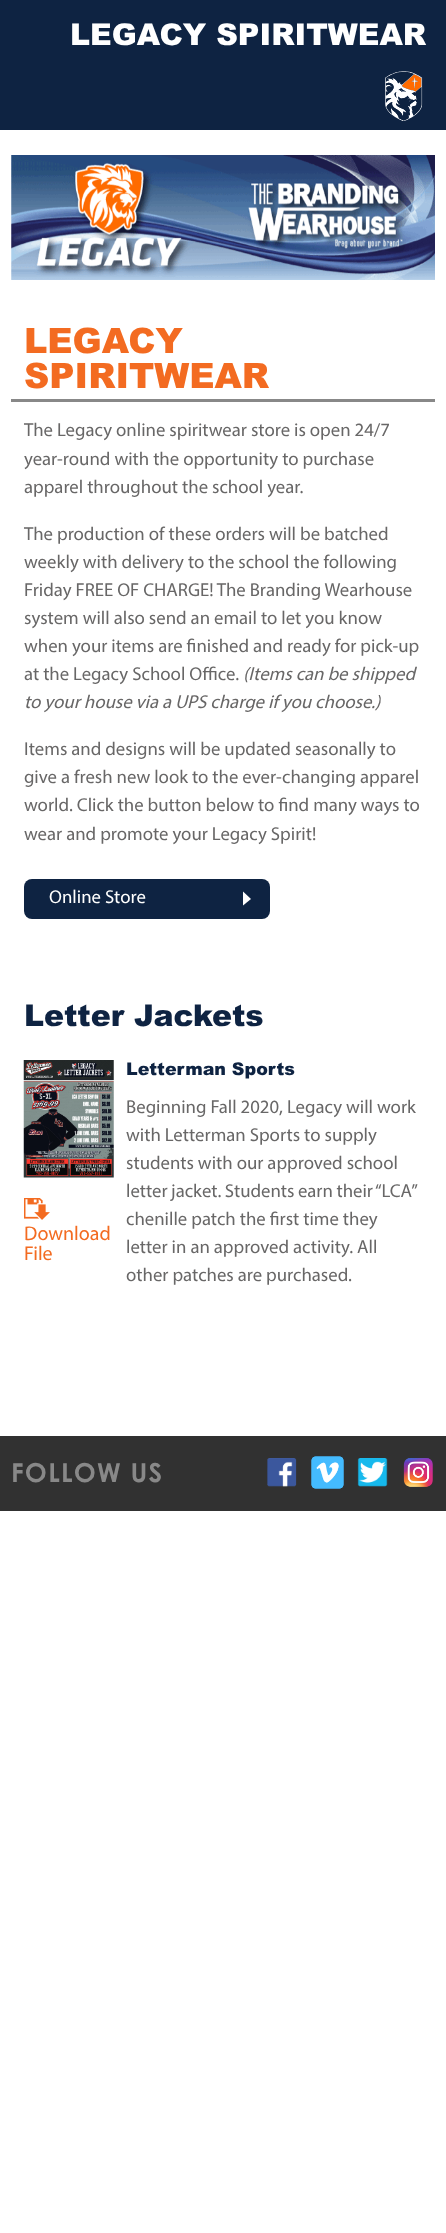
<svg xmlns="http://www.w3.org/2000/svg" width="446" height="2233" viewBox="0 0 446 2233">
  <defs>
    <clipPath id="clip1"><path d="M243 891h27v15H243z"/></clipPath>
  </defs>
  <rect width="100%" height="100%" fill="#fff"/>
  <path d="M0 0h446v130H0z" fill="#0e2342"/>
  <image x="385" y="71" width="38" height="50" href="img/1.png"/>
  <image x="11" y="155" width="424" height="125" href="img/2.png"/>
  <path d="M11 399h424v3H11z" fill="#888"/>
  <rect x="24" y="879" width="246" height="40" rx="8" fill="#0e2342"/>
  <g clip-path="url(#clip1)">
    <path d="M242.5 891V906L251 899Z" fill="#fff"/>
  </g>
  <image x="23" y="1060" width="91" height="118" href="img/3.png"/>
  <image x="24" y="1198" width="26" height="22" href="img/4.png"/>
  <path d="M0 1436h446v75H0z" fill="#313131"/>
  <image x="267" y="1458" width="30" height="29" href="img/5.png"/>
  <image x="311" y="1456" width="33" height="33" href="img/6.png"/>
  <image x="357" y="1458" width="31" height="29" href="img/7.png"/>
  <image x="403" y="1458" width="30" height="29" href="img/8.png"/>
  <text x="70" y="45" font-family="Arial" font-size="30" font-weight="900" fill="#fff">LEGACY SPIRITWEAR</text>
  <g font-family="Arial" font-size="35" font-weight="900" fill="#f36b21">
    <text x="24" y="353">LEGACY</text>
    <text x="24" y="388">SPIRITWEAR</text>
  </g>
  <g font-family="Myriad" font-size="18.75" fill="#686767">
    <text x="24" y="436">The Legacy online spiritwear store is open 24/7</text>
    <text x="24" y="465">year-round with the opportunity to purchase</text>
    <text x="24" y="493">apparel throughout the school year.</text>
    <text x="24" y="540">The production of these orders will be batched</text>
    <text x="24" y="568">weekly with delivery to the school the following</text>
    <text x="24" y="596">Friday FREE OF CHARGE! The Branding Wearhouse</text>
    <text x="24" y="624">system will also send an email to let you know</text>
    <text x="24" y="652">when your items are finished and ready for pick-up</text>
    <text x="24" y="680">at the Legacy School Office.</text>
  </g>
  <g font-family="Myriad" font-size="18.75" font-style="italic" fill="#686767">
    <text x="243" y="680">(Items can be shipped</text>
    <text x="24" y="708">to your house via a UPS charge if you choose.)</text>
  </g>
  <g font-family="Myriad" font-size="18.75" fill="#686767">
    <text x="24" y="755">Items and designs will be updated seasonally to</text>
    <text x="24" y="783">give a fresh new look to the ever-changing apparel</text>
    <text x="24" y="811">world. Click the button below to find many ways to</text>
    <text x="24" y="840">wear and promote your Legacy Spirit!</text>
  </g>
  <text x="49" y="903" font-family="Myriad" font-size="18.75" fill="#fff">Online Store</text>
  <text x="24" y="1026" font-family="Arial" font-size="30" font-weight="900" fill="#0e2342">Letter Jackets</text>
  <g font-family="Myriad" font-size="20" fill="#f36b21">
    <text x="24" y="1240">Download</text>
    <text x="24" y="1260">File</text>
  </g>
  <text x="126" y="1075" font-family="Arial" font-size="17.5" font-weight="900" fill="#0e2342">Letterman Sports</text>
  <g font-family="Myriad" font-size="18.75" fill="#686767">
    <text x="126" y="1113">Beginning Fall 2020, Legacy will work</text>
    <text x="126" y="1141">with Letterman Sports to supply</text>
    <text x="126" y="1169">students with our approved school</text>
    <text x="126" y="1197" word-spacing="-0.5">letter jacket. Students earn their “LCA”</text>
    <text x="126" y="1225">chenille patch the first time they</text>
    <text x="126" y="1253">letter in an approved activity. All</text>
    <text x="126" y="1281">other patches are purchased.</text>
  </g>
  <text x="11" y="1482" font-family="Century Gothic" font-size="26.25" font-weight="bold" letter-spacing="1.25" fill="#888">FOLLOW US</text>
</svg>
